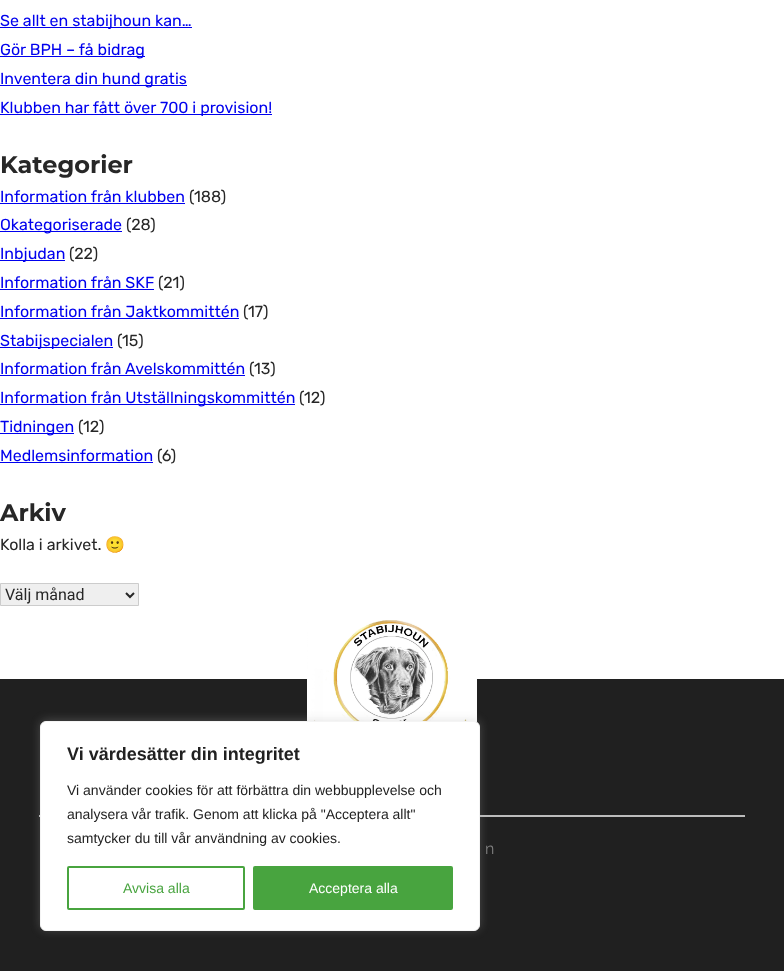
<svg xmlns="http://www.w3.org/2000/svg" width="784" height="971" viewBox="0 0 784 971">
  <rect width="100%" height="100%" fill="#fff"/>
  <path d="M0 27h192v1H0z" fill="#00e"/>
  <path d="M0 56h145v1H0z" fill="#00e"/>
  <path d="M0 85h187v1H0z" fill="#00e"/>
  <path d="M0 114h272v1H0z" fill="#00e"/>
  <path d="M0 203h185v1H0z" fill="#00e"/>
  <path d="M0 231h122v1H0z" fill="#00e"/>
  <path d="M0 260h65v1H0z" fill="#00e"/>
  <path d="M0 289h154v1H0z" fill="#00e"/>
  <path d="M0 318h239v1H0z" fill="#00e"/>
  <path d="M0 347h113v1H0z" fill="#00e"/>
  <path d="M0 375h245v1H0z" fill="#00e"/>
  <path d="M0 404h295v1H0z" fill="#00e"/>
  <path d="M0 433h74v1H0z" fill="#00e"/>
  <path d="M0 462h153v1H0z" fill="#00e"/>
  <path d="M0.5 583.5h138v22H0.5z" fill="#efefef" stroke="#ccc"/>
  <path d="M126 593L130 597L134 593" fill="none" stroke="#272727" stroke-width="2"/>
  <path d="M0 679h784v292H0z" fill="#202020"/>
  <image x="307" y="620" width="170" height="102" href="img/1.png"/>
  <path d="M39 815h706v2H39z" fill="#bcbcbc"/>
  <rect x="40" y="720" width="440" height="210" rx="6" fill="#acabab4d" filter="blur(5px)"/>
  <rect x="40.5" y="721.5" width="439" height="209" rx="5.5" fill="#fff" stroke="#f4f4f4"/>
  <rect x="68" y="867" width="176" height="42" rx="1" fill="none" stroke="#48a43f" stroke-width="2"/>
  <rect x="254" y="867" width="198" height="42" rx="1" fill="#48a43f" stroke="#48a43f" stroke-width="2"/>
  <g font-family="Rubik" font-size="16" fill="#00e">
    <text x="0" y="26">Se allt en stabijhoun kan…</text>
    <text x="0" y="55">Gör BPH – få bidrag</text>
    <text x="0" y="84">Inventera din hund gratis</text>
    <text x="0" y="113">Klubben har fått över 700 i provision!</text>
  </g>
  <text x="0" y="173" font-family="Montserrat" font-size="24" font-weight="bold" fill="#272727">Kategorier</text>
  <text x="0" y="202" font-family="Rubik" font-size="16" fill="#00e">Information från klubben</text>
  <text x="189" y="202" font-family="Rubik" font-size="16" fill="#272727">(188)</text>
  <text x="0" y="230" font-family="Rubik" font-size="16" fill="#00e">Okategoriserade</text>
  <text x="126" y="230" font-family="Rubik" font-size="16" fill="#272727">(28)</text>
  <text x="0" y="259" font-family="Rubik" font-size="16" fill="#00e">Inbjudan</text>
  <text x="69" y="259" font-family="Rubik" font-size="16" fill="#272727">(22)</text>
  <text x="0" y="288" font-family="Rubik" font-size="16" fill="#00e">Information från SKF</text>
  <text x="158" y="288" font-family="Rubik" font-size="16" fill="#272727">(21)</text>
  <text x="0" y="317" font-family="Rubik" font-size="16" fill="#00e">Information från Jaktkommittén</text>
  <text x="243" y="317" font-family="Rubik" font-size="16" fill="#272727">(17)</text>
  <text x="0" y="346" font-family="Rubik" font-size="16" fill="#00e">Stabijspecialen</text>
  <text x="117" y="346" font-family="Rubik" font-size="16" fill="#272727">(15)</text>
  <text x="0" y="374" font-family="Rubik" font-size="16" fill="#00e">Information från Avelskommittén</text>
  <text x="249" y="374" font-family="Rubik" font-size="16" fill="#272727">(13)</text>
  <text x="0" y="403" font-family="Rubik" font-size="16" fill="#00e">Information från Utställningskommittén</text>
  <text x="299" y="403" font-family="Rubik" font-size="16" fill="#272727">(12)</text>
  <text x="0" y="432" font-family="Rubik" font-size="16" fill="#00e">Tidningen</text>
  <text x="78" y="432" font-family="Rubik" font-size="16" fill="#272727">(12)</text>
  <text x="0" y="461" font-family="Rubik" font-size="16" fill="#00e">Medlemsinformation</text>
  <text x="157" y="461" font-family="Rubik" font-size="16" fill="#272727">(6)</text>
  <text x="0" y="521" font-family="Montserrat" font-size="24" font-weight="bold" fill="#272727">Arkiv</text>
  <text x="0" y="550" font-family="Rubik" font-size="16" fill="#272727">Kolla i arkivet.</text>
  <text x="105" y="550" font-family="Noto Color Emoji" font-size="16" fill="#272727">🙂</text>
  <text x="5" y="600" font-family="Roboto" font-size="16" fill="#272727">Välj månad</text>
  <text x="485" y="854" font-family="Raleway" font-size="16" fill="#808080">n</text>
  <text x="67" y="760" font-family="Liberation Sans" font-size="18" font-weight="bold" fill="#212121">Vi värdesätter din integritet</text>
  <g font-family="Liberation Sans" font-size="14" fill="#212121">
    <text x="67" y="795">Vi använder cookies för att förbättra din webbupplevelse och</text>
    <text x="67" y="819">analysera vår trafik. Genom att klicka på "Acceptera allt"</text>
    <text x="67" y="843">samtycker du till vår användning av cookies.</text>
  </g>
  <text x="123" y="893" font-family="Liberation Sans" font-size="14" fill="#48a43f">Avvisa alla</text>
  <text x="309" y="893" font-family="Liberation Sans" font-size="14" fill="#fff">Acceptera alla</text>
</svg>
